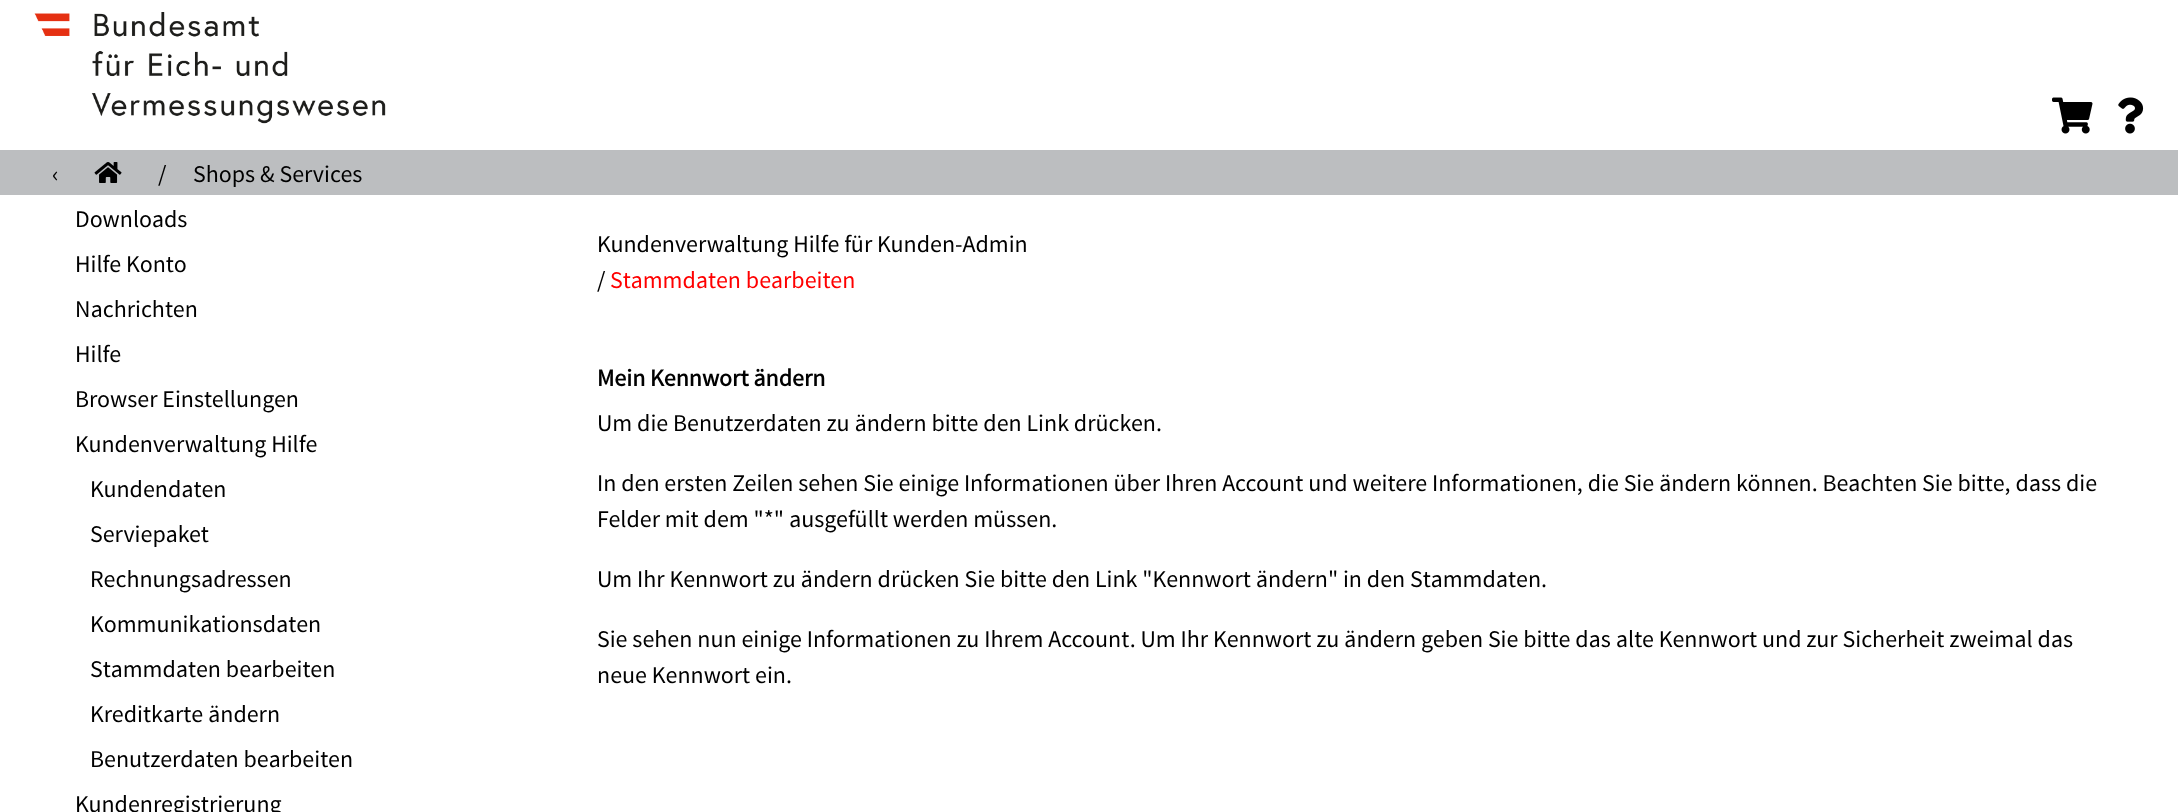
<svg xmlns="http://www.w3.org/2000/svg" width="2178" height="812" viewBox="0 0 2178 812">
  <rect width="100%" height="100%" fill="#fff"/>
  <image x="34" y="12" width="352" height="112" href="img/1.png"/>
  <image x="2052" y="97" width="41" height="37" href="img/2.png"/>
  <image x="2118" y="97" width="26" height="37" href="img/3.png"/>
  <path d="M0 150h2178v45H0z" fill="#bcbec0"/>
  <image x="94" y="162" width="28" height="21" href="img/4.png"/>
  <g font-family="Source Sans Pro" font-size="24" fill="#000">
    <text x="52" y="182">‹</text>
    <text x="158" y="182">/</text>
    <text x="193" y="182">Shops &amp; Services</text>
    <text x="75" y="227">Downloads</text>
    <text x="75" y="272">Hilfe Konto</text>
    <text x="75" y="317">Nachrichten</text>
    <text x="75" y="362">Hilfe</text>
    <text x="75" y="407">Browser Einstellungen</text>
    <text x="75" y="452">Kundenverwaltung Hilfe</text>
    <text x="90" y="497">Kundendaten</text>
    <text x="90" y="542">Serviepaket</text>
    <text x="90" y="587">Rechnungsadressen</text>
    <text x="90" y="632">Kommunikationsdaten</text>
    <text x="90" y="677">Stammdaten bearbeiten</text>
    <text x="90" y="722">Kreditkarte ändern</text>
    <text x="90" y="767">Benutzerdaten bearbeiten</text>
    <text x="75" y="812">Kundenregistrierung</text>
    <text x="597" y="252">Kundenverwaltung Hilfe für Kunden-Admin</text>
    <text x="597" y="288">/</text>
  </g>
  <text x="610" y="288" font-family="Source Sans Pro" font-size="24" fill="#f00">Stammdaten bearbeiten</text>
  <text x="597" y="386" font-family="Source Sans Pro" font-size="24" font-weight="bold" fill="#000">Mein Kennwort ändern</text>
  <g font-family="Source Sans Pro" font-size="24" fill="#000">
    <text x="597" y="431">Um die Benutzerdaten zu ändern bitte den Link drücken.</text>
    <text x="597" y="491">In den ersten Zeilen sehen Sie einige Informationen über Ihren Account und weitere Informationen, die Sie ändern können. Beachten Sie bitte, dass die</text>
    <text x="597" y="527">Felder mit dem "*" ausgefüllt werden müssen.</text>
    <text x="597" y="587">Um Ihr Kennwort zu ändern drücken Sie bitte den Link "Kennwort ändern" in den Stammdaten.</text>
    <text x="597" y="647">Sie sehen nun einige Informationen zu Ihrem Account. Um Ihr Kennwort zu ändern geben Sie bitte das alte Kennwort und zur Sicherheit zweimal das</text>
    <text x="597" y="683">neue Kennwort ein.</text>
  </g>
</svg>
